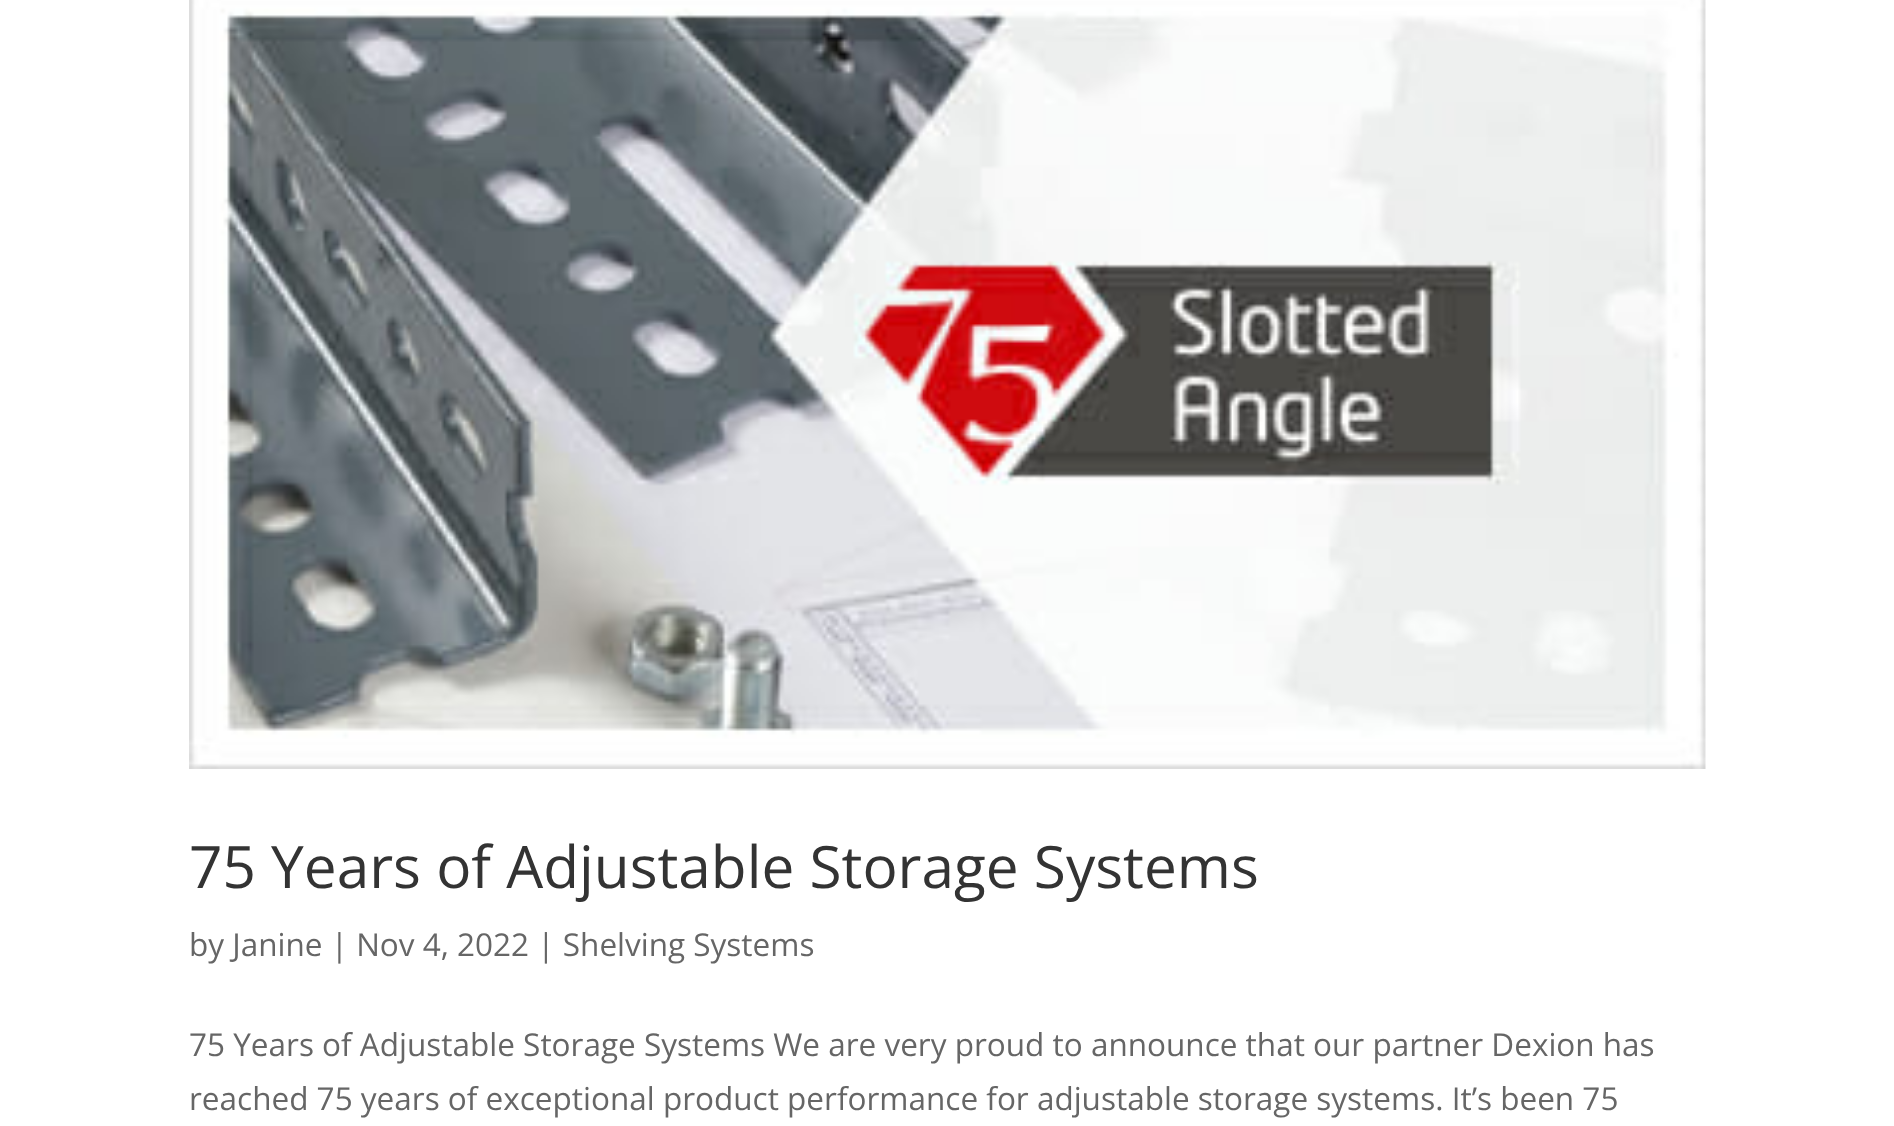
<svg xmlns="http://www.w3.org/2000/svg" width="1894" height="1126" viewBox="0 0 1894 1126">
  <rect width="100%" height="100%" fill="#fff"/>
  <image x="189" y="0" width="1517" height="769" href="img/1.png"/>
  <text x="189" y="888" font-family="Open Sans" font-size="58.5" fill="#333">75 Years of Adjustable Storage Systems</text>
  <g font-family="Open Sans" font-size="31.5" fill="#666">
    <text x="189" y="956">by Janine | Nov 4, 2022 | Shelving Systems</text>
    <text x="189" y="1056">75 Years of Adjustable Storage Systems We are very proud to announce that our partner Dexion has</text>
    <text x="189" y="1110">reached 75 years of exceptional product performance for adjustable storage systems. It’s been 75</text>
  </g>
</svg>
